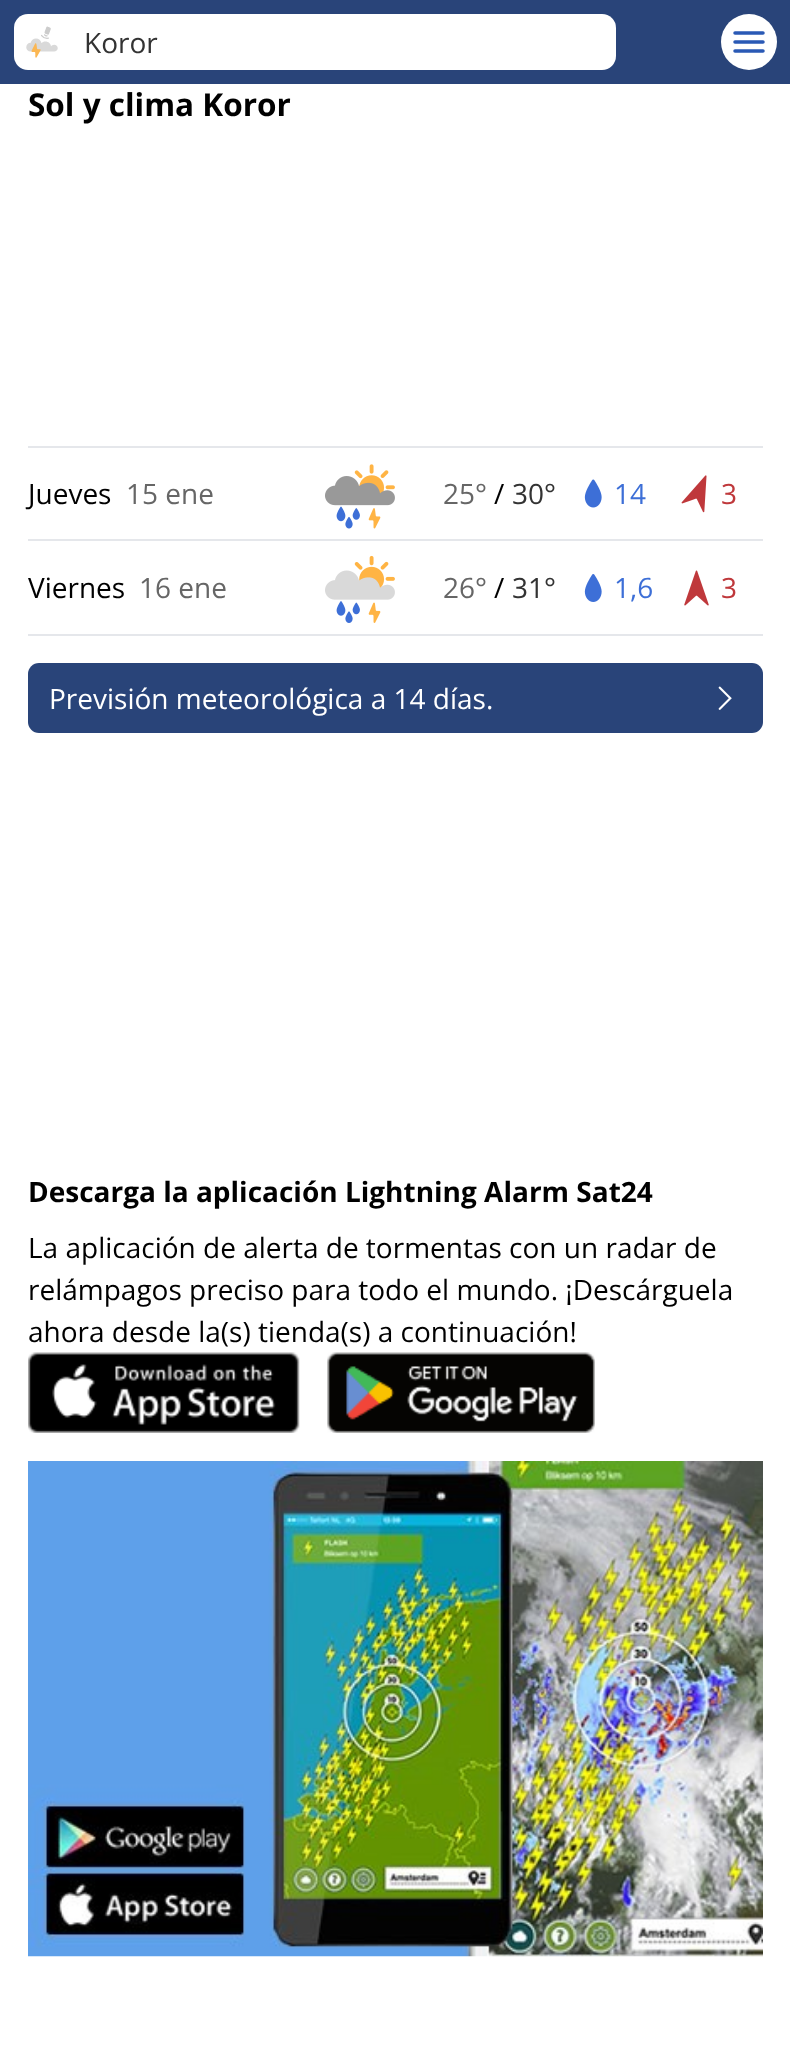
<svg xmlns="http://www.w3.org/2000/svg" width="790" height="2070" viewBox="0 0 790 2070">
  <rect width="100%" height="100%" fill="#fff"/>
  <path d="M0 0h790v84H0z" fill="#294479"/>
  <rect x="14" y="14" width="602" height="56" rx="14" fill="#fff"/>
  <image x="26" y="26" width="32" height="32" href="img/1.png"/>
  <circle cx="749" cy="42" r="28" fill="#fff"/>
  <path d="M735 42H763M735 33H763M735 51H763" fill="none" stroke="#2a59b5" stroke-width="3.5" stroke-linecap="round"/>
  <path d="M28 446h735v2H28z" fill="#e5e7eb"/>
  <path d="M28 539h735v2H28z" fill="#e5e7eb"/>
  <image x="325" y="464" width="70" height="65" href="img/2.png"/>
  <image x="584" y="479" width="18" height="29" href="img/3.png"/>
  <image x="681" y="475" width="26" height="38" href="img/4.png"/>
  <path d="M28 634h735v2H28z" fill="#e5e7eb"/>
  <image x="325" y="555" width="70" height="68" href="img/5.png"/>
  <image x="584" y="574" width="18" height="28" href="img/6.png"/>
  <image x="684" y="570" width="25" height="36" href="img/7.png"/>
  <rect x="28" y="663" width="735" height="70" rx="11" fill="#294479"/>
  <image x="718" y="686" width="14" height="24" href="img/8.png"/>
  <image x="28" y="1352" width="272" height="81" href="img/9.png"/>
  <image x="327" y="1352" width="268" height="81" href="img/10.png"/>
  <image x="28" y="1461" width="735" height="496" href="img/11.png"/>
  <text x="84" y="53" font-family="Open Sans" font-size="28" fill="#333">Koror</text>
  <text x="28" y="116" font-family="Open Sans" font-size="31.5" font-weight="bold" fill="#000">Sol y clima Koror</text>
  <text x="28" y="504" font-family="Open Sans" font-size="28" fill="#000">Jueves</text>
  <g font-family="Open Sans" font-size="28" fill="#666">
    <text x="126" y="504">15 ene</text>
    <text x="443" y="504">25°</text>
  </g>
  <text x="494" y="504" font-family="Open Sans" font-size="28" fill="#000">/</text>
  <text x="512" y="504" font-family="Open Sans" font-size="28" fill="#333">30°</text>
  <text x="614" y="504" font-family="Open Sans" font-size="28" fill="#3d6fd7">14</text>
  <text x="721" y="504" font-family="Open Sans" font-size="28" fill="#bf383b">3</text>
  <text x="28" y="598" font-family="Open Sans" font-size="28" fill="#000">Viernes</text>
  <g font-family="Open Sans" font-size="28" fill="#666">
    <text x="139" y="598">16 ene</text>
    <text x="443" y="598">26°</text>
  </g>
  <text x="494" y="598" font-family="Open Sans" font-size="28" fill="#000">/</text>
  <text x="512" y="598" font-family="Open Sans" font-size="28" fill="#333">31°</text>
  <text x="614" y="598" font-family="Open Sans" font-size="28" fill="#3d6fd7">1,6</text>
  <text x="721" y="598" font-family="Open Sans" font-size="28" fill="#bf383b">3</text>
  <text x="49" y="709" font-family="Open Sans" font-size="28" fill="#fff">Previsión meteorológica a 14 días.</text>
  <text x="28" y="1202" font-family="Open Sans" font-size="28" font-weight="bold" fill="#000">Descarga la aplicación Lightning Alarm Sat24</text>
  <g font-family="Open Sans" font-size="28" fill="#000">
    <text x="28" y="1258">La aplicación de alerta de tormentas con un radar de</text>
    <text x="28" y="1300">relámpagos preciso para todo el mundo. ¡Descárguela</text>
    <text x="28" y="1342">ahora desde la(s) tienda(s) a continuación!</text>
  </g>
</svg>
